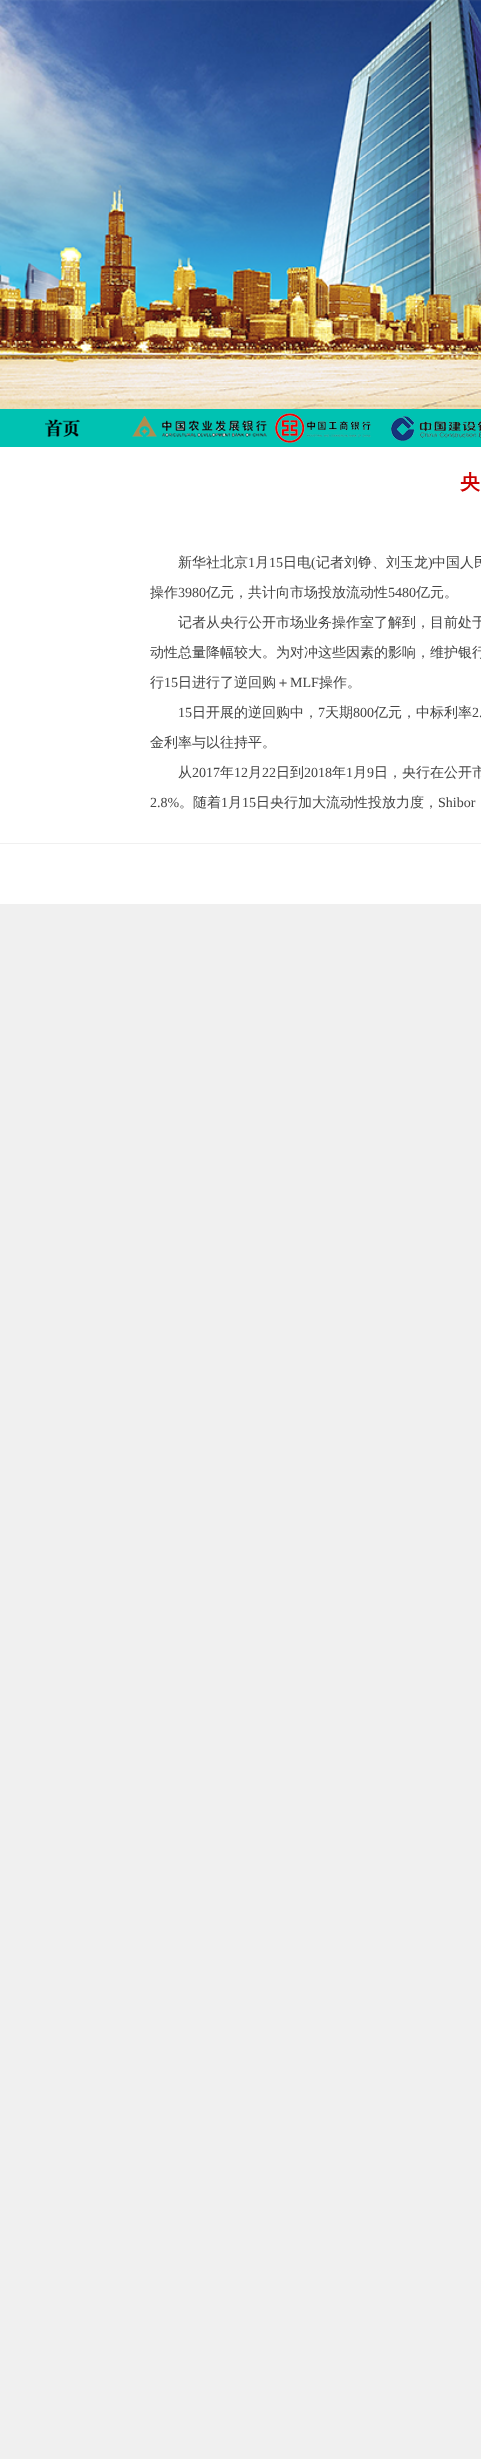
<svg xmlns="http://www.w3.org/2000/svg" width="481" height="2459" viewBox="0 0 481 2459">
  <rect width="100%" height="100%" fill="#f0f0f0"/>
  <image x="0" y="0" width="481" height="409" href="img/1.png"/>
  <path d="M0 409h481v38H0z" fill="#00c2b2"/>
  <image x="45" y="419" width="35" height="18" href="img/2.png"/>
  <image x="132" y="416" width="135" height="21" href="img/3.png"/>
  <image x="275" y="413" width="96" height="30" href="img/4.png"/>
  <image x="391" y="416" width="90" height="25" href="img/5.png"/>
  <path d="M0 447h481v396H0z" fill="#fff"/>
  <path d="M0 844h481v60H0z" fill="#fff"/>
  <text x="460" y="489" font-family="WenQuanYi Zen Hei" font-size="20" font-weight="bold" fill="#c00">央</text>
  <text x="178" y="567" font-family="WenQuanYi Zen Hei" font-size="14" font-weight="500" fill="#444">新华社北京</text>
  <text x="248" y="567" font-family="Liberation Serif" font-size="14" fill="#444">1</text>
  <text x="255" y="567" font-family="WenQuanYi Zen Hei" font-size="14" font-weight="500" fill="#444">月</text>
  <text x="269" y="567" font-family="Liberation Serif" font-size="14" fill="#444">15</text>
  <text x="283" y="567" font-family="WenQuanYi Zen Hei" font-size="14" font-weight="500" fill="#444">日电</text>
  <text x="311" y="567" font-family="Liberation Serif" font-size="14" fill="#444">(</text>
  <text x="316" y="567" font-family="WenQuanYi Zen Hei" font-size="14" font-weight="500" fill="#444">记者刘铮、刘玉龙</text>
  <text x="428" y="567" font-family="Liberation Serif" font-size="14" fill="#444">)</text>
  <g font-family="WenQuanYi Zen Hei" font-size="14" font-weight="500" fill="#444">
    <text x="432" y="567">中国人民</text>
    <text x="150" y="597">操作</text>
  </g>
  <text x="178" y="597" font-family="Liberation Serif" font-size="14" fill="#444">3980</text>
  <text x="206" y="597" font-family="WenQuanYi Zen Hei" font-size="14" font-weight="500" fill="#444">亿元，共计向市场投放流动性</text>
  <text x="388" y="597" font-family="Liberation Serif" font-size="14" fill="#444">5480</text>
  <g font-family="WenQuanYi Zen Hei" font-size="14" font-weight="500" fill="#444">
    <text x="416" y="597">亿元。</text>
    <text x="178" y="627">记者从央行公开市场业务操作室了解到，目前处于</text>
    <text x="150" y="657">动性总量降幅较大。为对冲这些因素的影响，维护银行</text>
    <text x="150" y="687">行</text>
  </g>
  <text x="164" y="687" font-family="Liberation Serif" font-size="14" fill="#444">15</text>
  <text x="178" y="687" font-family="WenQuanYi Zen Hei" font-size="14" font-weight="500" fill="#444">日进行了逆回购＋</text>
  <text x="290" y="687" font-family="Liberation Serif" font-size="14" fill="#444">MLF</text>
  <text x="319" y="687" font-family="WenQuanYi Zen Hei" font-size="14" font-weight="500" fill="#444">操作。</text>
  <text x="178" y="717" font-family="Liberation Serif" font-size="14" fill="#444">15</text>
  <text x="192" y="717" font-family="WenQuanYi Zen Hei" font-size="14" font-weight="500" fill="#444">日开展的逆回购中，</text>
  <text x="318" y="717" font-family="Liberation Serif" font-size="14" fill="#444">7</text>
  <text x="325" y="717" font-family="WenQuanYi Zen Hei" font-size="14" font-weight="500" fill="#444">天期</text>
  <text x="353" y="717" font-family="Liberation Serif" font-size="14" fill="#444">800</text>
  <text x="374" y="717" font-family="WenQuanYi Zen Hei" font-size="14" font-weight="500" fill="#444">亿元，中标利率</text>
  <text x="472" y="717" font-family="Liberation Serif" font-size="14" fill="#444">2.</text>
  <g font-family="WenQuanYi Zen Hei" font-size="14" font-weight="500" fill="#444">
    <text x="150" y="747">金利率与以往持平。</text>
    <text x="178" y="777">从</text>
  </g>
  <text x="192" y="777" font-family="Liberation Serif" font-size="14" fill="#444">2017</text>
  <text x="220" y="777" font-family="WenQuanYi Zen Hei" font-size="14" font-weight="500" fill="#444">年</text>
  <text x="234" y="777" font-family="Liberation Serif" font-size="14" fill="#444">12</text>
  <text x="248" y="777" font-family="WenQuanYi Zen Hei" font-size="14" font-weight="500" fill="#444">月</text>
  <text x="262" y="777" font-family="Liberation Serif" font-size="14" fill="#444">22</text>
  <text x="276" y="777" font-family="WenQuanYi Zen Hei" font-size="14" font-weight="500" fill="#444">日到</text>
  <text x="304" y="777" font-family="Liberation Serif" font-size="14" fill="#444">2018</text>
  <text x="332" y="777" font-family="WenQuanYi Zen Hei" font-size="14" font-weight="500" fill="#444">年</text>
  <text x="346" y="777" font-family="Liberation Serif" font-size="14" fill="#444">1</text>
  <text x="353" y="777" font-family="WenQuanYi Zen Hei" font-size="14" font-weight="500" fill="#444">月</text>
  <text x="367" y="777" font-family="Liberation Serif" font-size="14" fill="#444">9</text>
  <text x="374" y="777" font-family="WenQuanYi Zen Hei" font-size="14" font-weight="500" fill="#444">日，央行在公开市</text>
  <text x="150" y="807" font-family="Liberation Serif" font-size="14" fill="#444">2.8%</text>
  <text x="179" y="807" font-family="WenQuanYi Zen Hei" font-size="14" font-weight="500" fill="#444">。随着</text>
  <text x="221" y="807" font-family="Liberation Serif" font-size="14" fill="#444">1</text>
  <text x="228" y="807" font-family="WenQuanYi Zen Hei" font-size="14" font-weight="500" fill="#444">月</text>
  <text x="242" y="807" font-family="Liberation Serif" font-size="14" fill="#444">15</text>
  <text x="256" y="807" font-family="WenQuanYi Zen Hei" font-size="14" font-weight="500" fill="#444">日央行加大流动性投放力度，</text>
  <text x="438" y="807" font-family="Liberation Serif" font-size="14" fill="#444">Shibor</text>
</svg>
